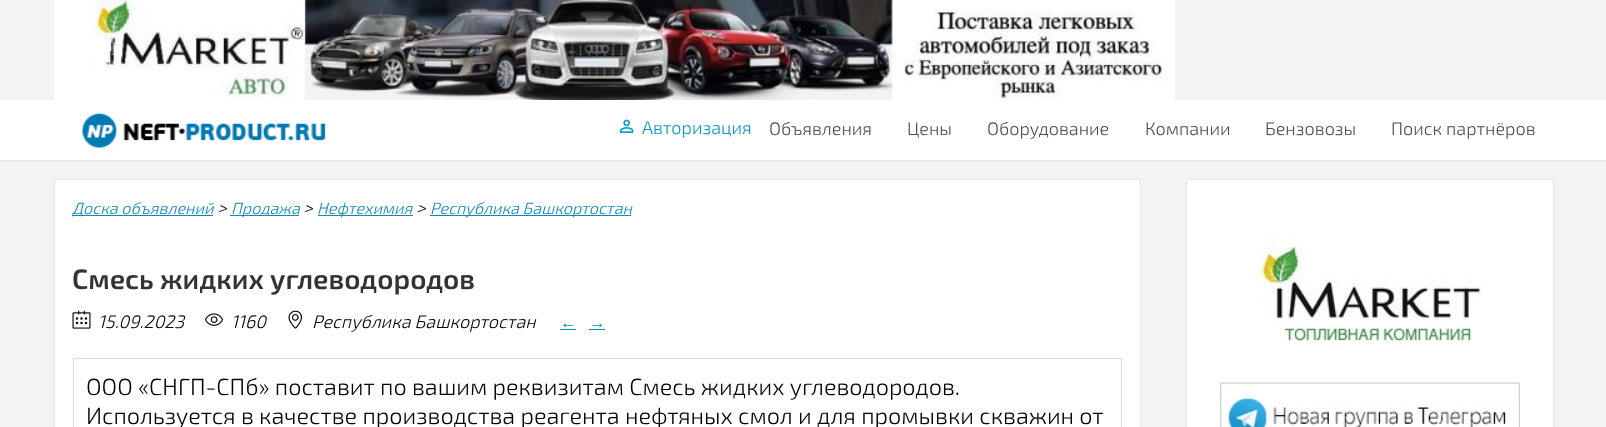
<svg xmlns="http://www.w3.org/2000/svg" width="1606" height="427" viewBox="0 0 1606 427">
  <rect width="100%" height="100%" fill="#f2f3f4"/>
  <image x="54" y="0" width="1121" height="100" href="img/1.png"/>
  <path d="M0 100h1606v60H0z" fill="#fff"/>
  <path d="M0 160h1606v1H0z" fill="#e6e6e6"/>
  <image x="82" y="113" width="244" height="35" href="img/2.png"/>
  <image x="620" y="119" width="14" height="14" href="img/3.png"/>
  <path d="M54.5 179.5h1086v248H54.5z" fill="#fff" stroke="#e6e6e6"/>
  <path d="M73 215h140v1H73z" fill="#0a89b8"/>
  <path d="M230 215h69v1H230z" fill="#0a89b8"/>
  <path d="M318 215h95v1H318z" fill="#0a89b8"/>
  <path d="M430 215h201v1H430z" fill="#0a89b8"/>
  <image x="72" y="310" width="19" height="19" href="img/4.png"/>
  <image x="205" y="313" width="18" height="13" href="img/5.png"/>
  <image x="288" y="310" width="14" height="19" href="img/6.png"/>
  <path d="M560 329h16v1H560z" fill="#0a89b8"/>
  <path d="M589 329h16v1H589z" fill="#0a89b8"/>
  <path d="M73 358h1050v1H73z" fill="#ddd"/>
  <path d="M1121 358h1v69H1121z" fill="#ddd"/>
  <path d="M73 358h1v69H73z" fill="#ddd"/>
  <path d="M1186.5 179.5h367v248H1186.5z" fill="#fff" stroke="#e6e6e6"/>
  <image x="1260" y="238" width="221" height="104" href="img/7.png"/>
  <image x="1220" y="382" width="300" height="45" href="img/8.png"/>
  <text x="642" y="134" font-family="'Exo 2'" font-size="18" font-weight="300" fill="#09c">Авторизация</text>
  <g font-family="'Exo 2'" font-size="18" font-weight="300" fill="#4d4d4d">
    <text x="769" y="135">Объявления</text>
    <text x="907" y="135">Цены</text>
    <text x="987" y="135">Оборудование</text>
    <text x="1145" y="135">Компании</text>
    <text x="1265" y="135">Бензовозы</text>
    <text x="1391" y="135">Поиск партнёров</text>
  </g>
  <text x="72" y="214" font-family="'Exo 2'" font-size="16.25" font-weight="300" font-style="italic" fill="#0a89b8">Доска объявлений</text>
  <text x="217" y="214" font-family="'Exo 2'" font-size="18" font-weight="300" font-style="italic" fill="#000">&gt;</text>
  <text x="231" y="214" font-family="'Exo 2'" font-size="16.25" font-weight="300" font-style="italic" fill="#0a89b8">Продажа</text>
  <text x="303" y="214" font-family="'Exo 2'" font-size="18" font-weight="300" font-style="italic" fill="#000">&gt;</text>
  <text x="317" y="214" font-family="'Exo 2'" font-size="16.25" font-weight="300" font-style="italic" fill="#0a89b8">Нефтехимия</text>
  <text x="416" y="214" font-family="'Exo 2'" font-size="18" font-weight="300" font-style="italic" fill="#000">&gt;</text>
  <text x="430" y="214" font-family="'Exo 2'" font-size="16.25" font-weight="300" font-style="italic" fill="#0a89b8">Республика Башкортостан</text>
  <text x="72" y="289" font-family="'Exo 2'" font-size="28" font-weight="600" fill="#333">Смесь жидких углеводородов</text>
  <g font-family="'Exo 2'" font-size="18" font-weight="300" font-style="italic" fill="#000">
    <text x="98" y="328">15.09.2023</text>
    <text x="231" y="328">1160</text>
    <text x="312" y="328">Республика Башкортостан</text>
  </g>
  <g font-family="Liberation Serif" font-size="16.25" font-style="italic" fill="#0a89b8">
    <text x="560" y="328">←</text>
    <text x="589" y="328">→</text>
  </g>
  <g font-family="'Exo 2'" font-size="23.4" font-weight="300" fill="#000">
    <text x="86" y="395">ООО «СНГП-СПб» поставит по вашим реквизитам Смесь жидких углеводородов.</text>
    <text x="86" y="424">Используется в качестве производства реагента нефтяных смол и для промывки скважин от</text>
  </g>
</svg>
